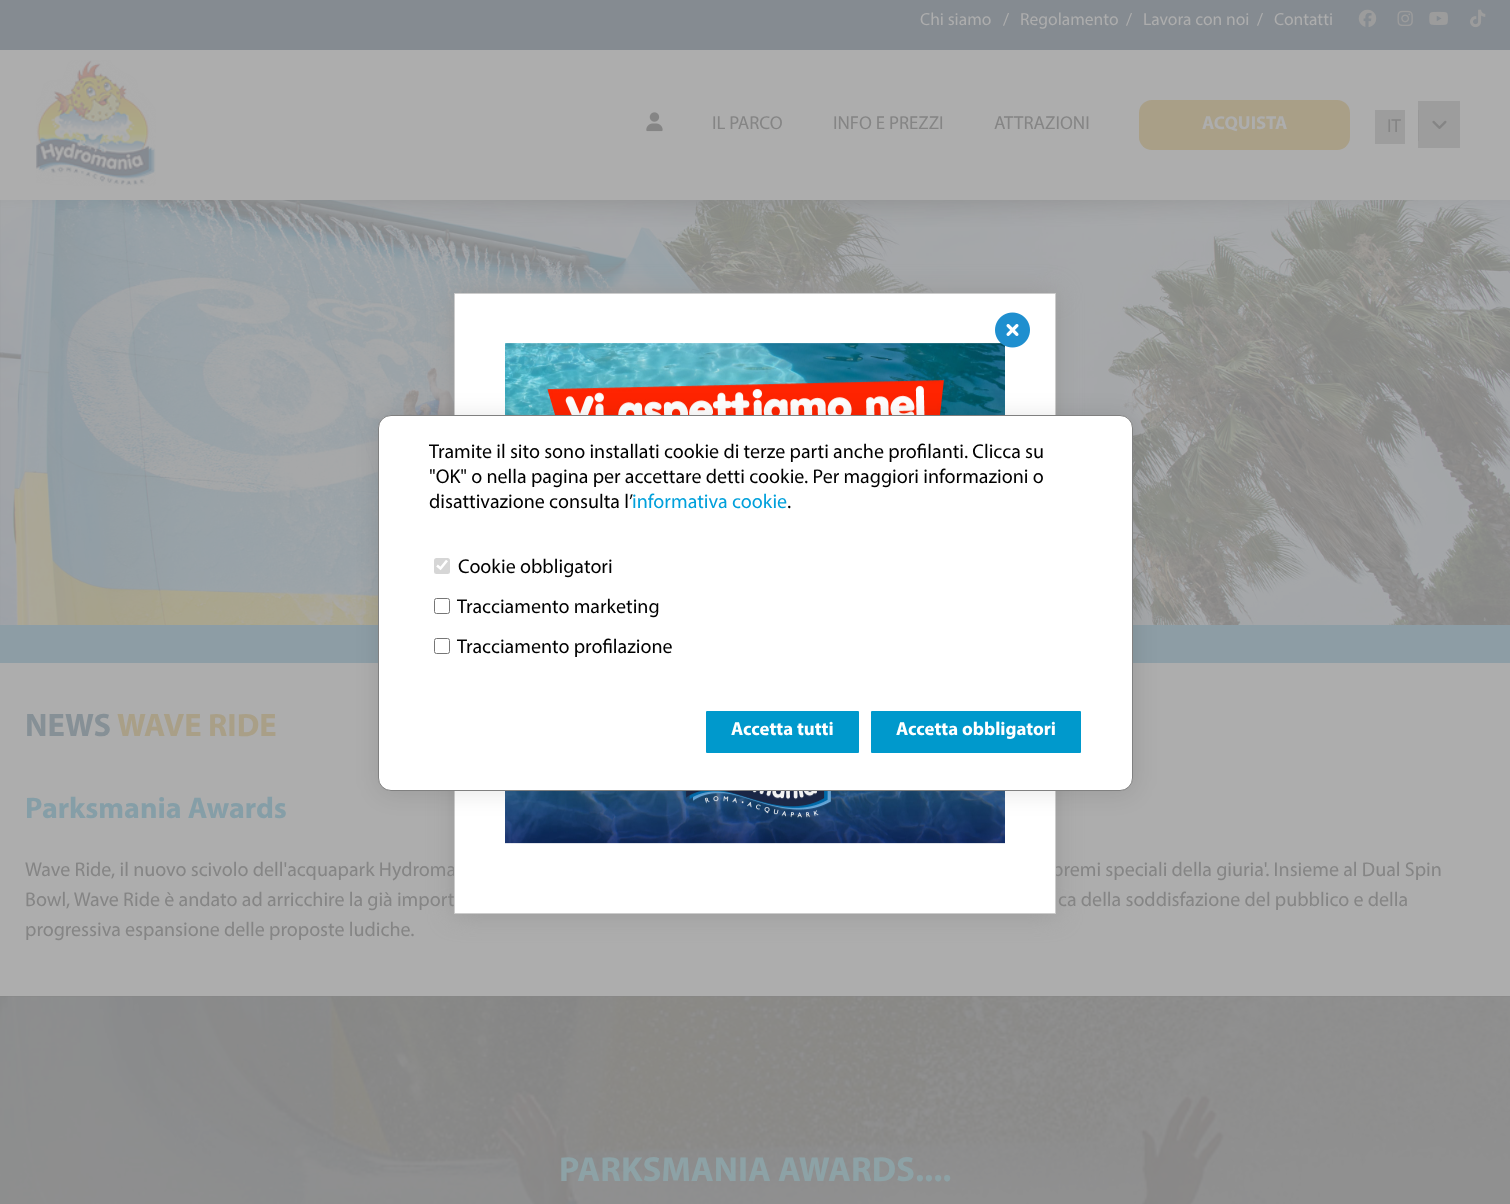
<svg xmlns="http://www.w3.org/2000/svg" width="1510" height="1204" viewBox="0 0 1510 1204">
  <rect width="100%" height="100%" fill="#adadad"/>
  <path d="M0 0h1510v50H0z" fill="#858b91"/>
  <image x="1358" y="9" width="19" height="19" href="img/1.png"/>
  <image x="1397" y="10" width="16" height="17" href="img/2.png"/>
  <image x="1429" y="11" width="19" height="14" href="img/3.png"/>
  <image x="1470" y="9" width="16" height="19" href="img/4.png"/>
  <image x="36" y="60" width="120" height="126" href="img/5.png"/>
  <image x="646" y="112" width="17" height="20" href="img/6.png"/>
  <rect x="1139" y="100" width="211" height="50" rx="13" fill="#a99f87"/>
  <path d="M1375 110h30v34H1375z" fill="#9d9d9d"/>
  <path d="M1418 101h42v47H1418z" fill="#9d9d9d"/>
  <path d="M1418 110h1v31H1418z" fill="#989898"/>
  <image x="1432" y="120" width="15" height="9" href="img/7.png"/>
  <image x="0" y="200" width="1510" height="425" href="img/11.png"/>
  <image x="0" y="200" width="1510" height="27" href="img/8.png"/>
  <path d="M0 625h1510v38H0z" fill="#8d9da5"/>
  <path d="M454 293h602v621H454z" fill="#999" filter="blur(12.5px)"/>
  <path d="M0 996h1510v1H0z" fill="#858585"/>
  <image x="0" y="996" width="1510" height="208" href="img/12.png"/>
  <g font-family="Myriad" font-size="17.5" fill="#adadad">
    <text x="920" y="25">Chi siamo</text>
    <text x="1003" y="25">/</text>
    <text x="1020" y="25">Regolamento</text>
    <text x="1126" y="25">/</text>
    <text x="1143" y="25">Lavora con noi</text>
    <text x="1257" y="25">/</text>
    <text x="1274" y="25">Contatti</text>
  </g>
  <g font-family="Myriad" font-size="18.75" fill="#858585">
    <text x="712" y="129">IL PARCO</text>
    <text x="833" y="129">INFO E PREZZI</text>
    <text x="994" y="129">ATTRAZIONI</text>
  </g>
  <text x="1202" y="129" font-family="Myriad" font-size="18.75" font-weight="bold" fill="#adadad">ACQUISTA</text>
  <text x="1387" y="132" font-family="Myriad" font-size="18.75" fill="#858585">IT</text>
  <text x="25" y="736" font-family="Myriad" font-size="32.5" font-weight="bold" fill="#869096">NEWS</text>
  <text x="117" y="736" font-family="Myriad" font-size="32.5" font-weight="bold" fill="#a99f87">WAVE RIDE</text>
  <text x="25" y="818" font-family="Myriad" font-size="30" font-weight="bold" fill="#859ea7">Parksmania Awards</text>
  <g font-family="Myriad" font-size="20" fill="#858585">
    <text x="25" y="876">Wave Ride, il nuovo scivolo dell'acquapark Hydroma</text>
    <text x="1052" y="876">premi speciali della giuria'. Insieme al Dual Spin</text>
  </g>
  <path d="M454.5 293.5h601v620H454.5z" fill="#fff" stroke="#ccc"/>
  <image x="505" y="343" width="500" height="501" href="img/10.png"/>
  <rect x="379" y="416" width="755" height="377" rx="13" fill="#0000001a" filter="blur(12.5px)"/>
  <rect x="378.5" y="415.5" width="754" height="375" rx="12.5" fill="#fff" stroke="#808080"/>
  <text x="457" y="653" font-family="Myriad" font-size="20" fill="#000">Tracciamento profilazione</text>
  <rect x="434.5" y="638.5" width="15" height="15" rx="2" fill="none" stroke="#767676"/>
  <text x="457" y="613" font-family="Myriad" font-size="20" fill="#000">Tracciamento marketing</text>
  <rect x="434.5" y="598.5" width="15" height="15" rx="2" fill="none" stroke="#767676"/>
  <text x="458" y="573" font-family="Myriad" font-size="20" fill="#000">Cookie obbligatori</text>
  <rect x="434" y="558" width="16" height="16" rx="2.5" fill="#d6d6d6"/>
  <path d="M437 565.5L440.5 568.5L447 560.5" fill="none" stroke="#fff" stroke-width="2.6"/>
  <text x="787" y="508" font-family="Myriad" font-size="20" fill="#000">.</text>
  <text x="632" y="508" font-family="Myriad" font-size="20" fill="#00a0db">informativa cookie</text>
  <g font-family="Myriad" font-size="20" fill="#000">
    <text x="429" y="508">disattivazione consulta l’</text>
    <text x="429" y="483">"OK" o nella pagina per accettare detti cookie. Per maggiori informazioni o</text>
    <text x="429" y="458">Tramite il sito sono installati cookie di terze parti anche profilanti. Clicca su</text>
  </g>
  <rect x="871" y="711" width="210" height="42" rx="1" fill="#09c"/>
  <text x="896" y="735" font-family="Myriad" font-size="18.75" font-weight="bold" fill="#fff">Accetta obbligatori</text>
  <rect x="706" y="711" width="153" height="42" rx="1" fill="#09c"/>
  <text x="731" y="735" font-family="Myriad" font-size="18.75" font-weight="bold" fill="#fff">Accetta tutti</text>
  <image x="995" y="312" width="35" height="36" href="img/9.png"/>
  <g font-family="Myriad" font-size="20" fill="#858585">
    <text x="25" y="906">Bowl, Wave Ride è andato ad arricchire la già import</text>
    <text x="1058" y="906">ca della soddisfazione del pubblico e della</text>
    <text x="25" y="936">progressiva espansione delle proposte ludiche.</text>
  </g>
  <text x="559" y="1181" font-family="Myriad" font-size="35" font-weight="bold" fill="#8da2a6">PARKSMANIA AWARDS....</text>
</svg>
